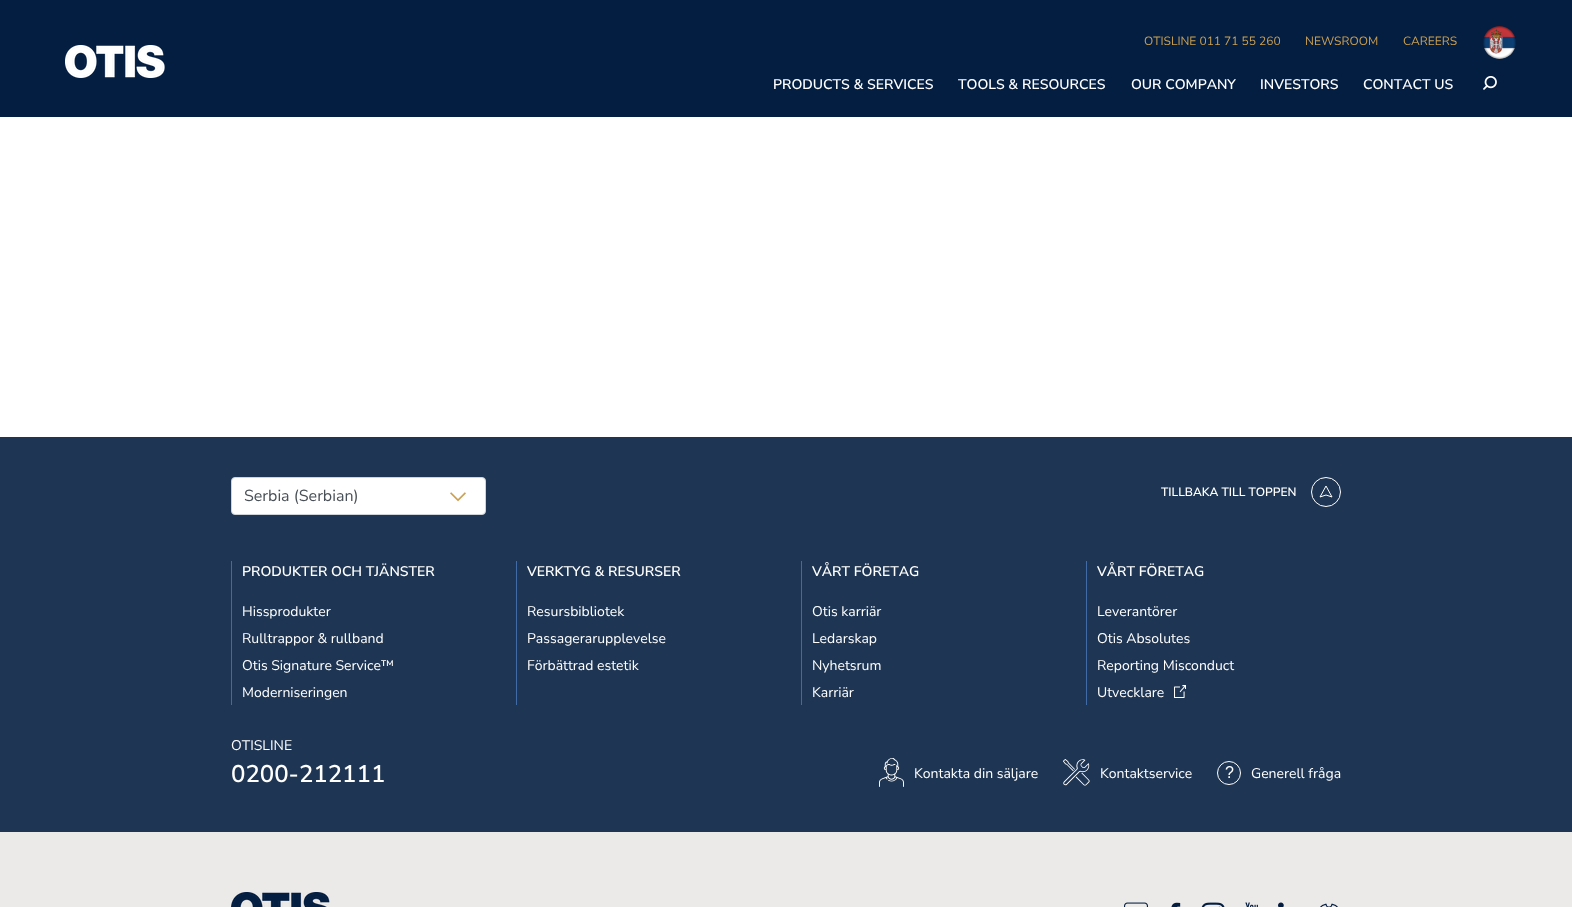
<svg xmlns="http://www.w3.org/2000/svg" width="1572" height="907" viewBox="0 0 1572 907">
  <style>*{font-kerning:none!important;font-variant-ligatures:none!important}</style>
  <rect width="100%" height="100%" fill="#fff"/>
  <path d="M0 0h1572v117H0z" fill="#041e42"/>
  <image x="65" y="45" width="100" height="33" href="img/1.png"/>
  <image x="1483" y="26" width="33" height="33" href="img/2.png"/>
  <image x="1483" y="76" width="14" height="14" href="img/3.png"/>
  <path d="M0 832h1572v75H0z" fill="#eceae8"/>
  <path d="M0 437h1572v395H0z" fill="#1e3553"/>
  <rect x="231.5" y="477.5" width="254" height="37" rx="3.5" fill="#fff" stroke="#ced4da"/>
  <image x="450" y="492" width="16" height="10" href="img/4.png"/>
  <image x="1311" y="477" width="30" height="30" href="img/5.png"/>
  <path d="M231 561h1v144H231z" fill="#406ba6"/>
  <path d="M516 561h1v144H516z" fill="#406ba6"/>
  <path d="M801 561h1v144H801z" fill="#406ba6"/>
  <path d="M1086 561h1v144H1086z" fill="#406ba6"/>
  <image x="1174" y="685" width="12" height="13" href="img/6.png"/>
  <image x="879" y="758" width="25" height="29" href="img/7.png"/>
  <image x="1063" y="759" width="27" height="27" href="img/8.png"/>
  <image x="1217" y="761" width="24" height="24" href="img/9.png"/>
  <image x="231" y="892" width="99" height="15" href="img/10.png"/>
  <image x="1124" y="902" width="24" height="5" href="img/11.png"/>
  <image x="1171" y="902" width="10" height="5" href="img/12.png"/>
  <image x="1201" y="902" width="24" height="5" href="img/13.png"/>
  <image x="1245" y="902" width="13" height="5" href="img/14.png"/>
  <image x="1278" y="902" width="6" height="5" href="img/15.png"/>
  <image x="1320" y="903" width="18" height="4" href="img/16.png"/>
  <g font-family="Nunito Sans" font-size="12" fill="#cba052">
    <text x="1144" y="45">OTISLINE 011 71 55 260</text>
    <text x="1305" y="45">NEWSROOM</text>
    <text x="1403" y="45">CAREERS</text>
  </g>
  <g font-family="Nunito Sans" font-size="14" font-weight="600" fill="#fff">
    <text x="773" y="89">PRODUCTS &amp; SERVICES</text>
    <text x="958" y="89">TOOLS &amp; RESOURCES</text>
    <text x="1131" y="89">OUR COMPANY</text>
    <text x="1260" y="89">INVESTORS</text>
    <text x="1363" y="89">CONTACT US</text>
  </g>
  <text x="244" y="501" font-family="Nunito Sans" font-size="16" fill="#495057">Serbia (Serbian) </text>
  <text x="1161" y="496" font-family="Nunito Sans" font-size="12" font-weight="600" fill="#fff">TILLBAKA TILL TOPPEN</text>
  <text x="242" y="576" font-family="Nunito Sans" font-size="14" font-weight="600" fill="#fff">PRODUKTER OCH TJÄNSTER</text>
  <g font-family="Nunito Sans" font-size="14" fill="#fff">
    <text x="242" y="616">Hissprodukter</text>
    <text x="242" y="643">Rulltrappor &amp; rullband</text>
    <text x="242" y="670">Otis Signature Service™</text>
    <text x="242" y="697">Moderniseringen</text>
  </g>
  <text x="527" y="576" font-family="Nunito Sans" font-size="14" font-weight="600" fill="#fff">VERKTYG &amp; RESURSER</text>
  <g font-family="Nunito Sans" font-size="14" fill="#fff">
    <text x="527" y="616">Resursbibliotek</text>
    <text x="527" y="643">Passagerarupplevelse</text>
    <text x="527" y="670">Förbättrad estetik</text>
  </g>
  <text x="812" y="576" font-family="Nunito Sans" font-size="14" font-weight="600" fill="#fff">VÅRT FÖRETAG</text>
  <g font-family="Nunito Sans" font-size="14" fill="#fff">
    <text x="812" y="616">Otis karriär</text>
    <text x="812" y="643">Ledarskap</text>
    <text x="812" y="670">Nyhetsrum</text>
    <text x="812" y="697">Karriär</text>
  </g>
  <text x="1097" y="576" font-family="Nunito Sans" font-size="14" font-weight="600" fill="#fff">VÅRT FÖRETAG</text>
  <g font-family="Nunito Sans" font-size="14" fill="#fff">
    <text x="1097" y="616">Leverantörer</text>
    <text x="1097" y="643">Otis Absolutes</text>
    <text x="1097" y="670">Reporting Misconduct</text>
    <text x="1097" y="697">Utvecklare</text>
    <text x="231" y="750">OTISLINE</text>
  </g>
  <text x="231" y="782" font-family="Nunito Sans" font-size="24" font-weight="600" fill="#fff">0200-212111</text>
  <g font-family="Nunito Sans" font-size="14" fill="#fff">
    <text x="914" y="778">Kontakta din säljare</text>
    <text x="1100" y="778">Kontaktservice</text>
    <text x="1251" y="778">Generell fråga</text>
  </g>
</svg>
